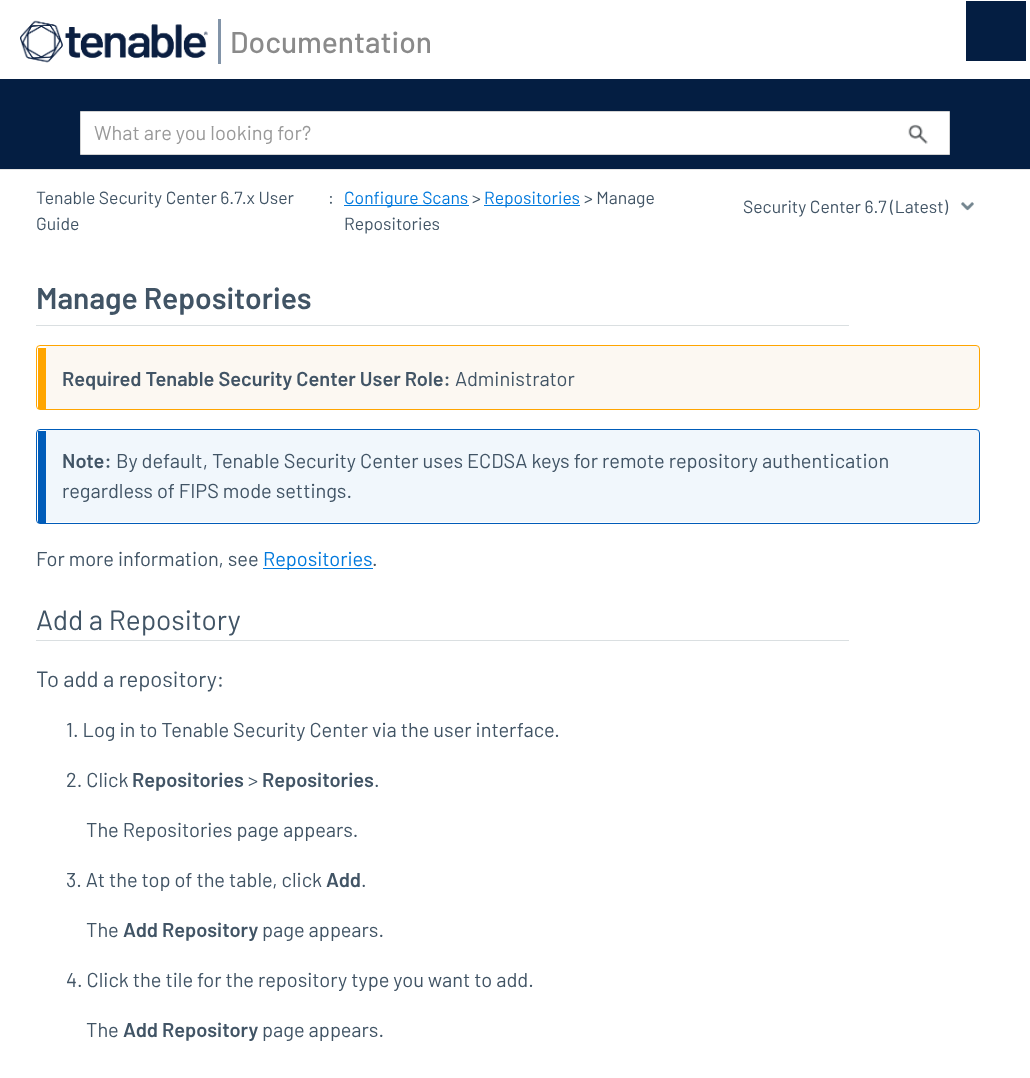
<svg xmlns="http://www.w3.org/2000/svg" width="1030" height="1078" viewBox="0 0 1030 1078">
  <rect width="100%" height="100%" fill="#fff"/>
  <path d="M0 169h1030v1H0z" fill="#e6e6e6"/>
  <image x="20" y="20" width="188" height="43" href="img/1.png"/>
  <path d="M218 19h3v45H218z" fill="#8294a8"/>
  <path d="M0 79h1030v90H0z" fill="#041e42"/>
  <path d="M80.5 111.5h869v43H80.5z" fill="#fff" stroke="#d3d3d3"/>
  <image x="908" y="124" width="20" height="20" href="img/2.png"/>
  <path d="M966 1h60v60H966z" fill="#041e42"/>
  <path d="M344 205h125v1H344z" fill="#0079dd"/>
  <path d="M484 205h96v1H484z" fill="#0079dd"/>
  <image x="961" y="202" width="13" height="9" href="img/3.png"/>
  <path d="M36 325h813v1H36z" fill="#dadfe1"/>
  <path d="M46 346H976C978 346 979 347 979 349V406C979 408 978 409 976 409H46Z" fill="#fcf8f2"/>
  <rect x="36.5" y="345.5" width="943" height="64" rx="3.5" fill="none" stroke="#ffa500"/>
  <path d="M38 348h8v61H38z" fill="#ffa500"/>
  <path d="M46 430H976C978 430 979 431 979 432V520C979 521 978 522 976 522H46Z" fill="#f1f7fc"/>
  <rect x="36.5" y="429.5" width="943" height="94" rx="3.5" fill="none" stroke="#005cb9"/>
  <path d="M38 431h8v92H38z" fill="#005cb9"/>
  <path d="M263 568h110v1H263z" fill="#0079dd"/>
  <path d="M36 640h813v1H36z" fill="#dadfe1"/>
  <text x="230" y="53" font-family="Barlow" font-size="30" font-weight="500" fill="#8a8a8a">Documentation</text>
  <text x="94" y="140" font-family="Barlow" font-size="20" fill="#999">What are you looking for?</text>
  <g font-family="Barlow" font-size="17.5" fill="#415465">
    <text x="36" y="204">Tenable Security Center 6.7.x User</text>
    <text x="36" y="230">Guide</text>
    <text x="328" y="204">:</text>
  </g>
  <text x="344" y="204" font-family="Barlow" font-size="17.5" fill="#0079dd">Configure Scans</text>
  <text x="472" y="204" font-family="Barlow" font-size="17.5" fill="#415465">&gt;</text>
  <text x="484" y="204" font-family="Barlow" font-size="17.5" fill="#0079dd">Repositories</text>
  <g font-family="Barlow" font-size="17.5" fill="#415465">
    <text x="584" y="204">&gt; Manage</text>
    <text x="344" y="230">Repositories</text>
    <text x="743" y="213">Security Center 6.7 (Latest)</text>
  </g>
  <text x="36" y="309" font-family="Barlow" font-size="30" font-weight="600" fill="#415465">Manage Repositories</text>
  <text x="62" y="386" font-family="Barlow" font-size="20" font-weight="600" fill="#415465">Required Tenable Security Center User Role:</text>
  <text x="455" y="386" font-family="Barlow" font-size="20" fill="#415465">Administrator</text>
  <text x="62" y="468" font-family="Barlow" font-size="20" font-weight="600" fill="#415465">Note:</text>
  <g font-family="Barlow" font-size="20" fill="#415465">
    <text x="116" y="468">By default, Tenable Security Center uses ECDSA keys for remote repository authentication</text>
    <text x="62" y="498">regardless of FIPS mode settings.</text>
    <text x="36" y="566">For more information, see</text>
  </g>
  <text x="263" y="566" font-family="Barlow" font-size="20" fill="#0079dd">Repositories</text>
  <text x="372" y="566" font-family="Barlow" font-size="20" fill="#415465">.</text>
  <text x="36" y="630" font-family="Barlow" font-size="28" fill="#415465">Add a Repository</text>
  <text x="36" y="687" font-family="Barlow" font-size="22" fill="#415465">To add a repository:</text>
  <g font-family="Barlow" font-size="20" fill="#415465">
    <text x="66" y="737">1. Log in to Tenable Security Center via the user interface.</text>
    <text x="66" y="787">2. Click</text>
  </g>
  <text x="132" y="787" font-family="Barlow" font-size="20" font-weight="600" fill="#415465">Repositories</text>
  <text x="248" y="787" font-family="Barlow" font-size="20" fill="#415465">&gt;</text>
  <text x="262" y="787" font-family="Barlow" font-size="20" font-weight="600" fill="#415465">Repositories</text>
  <g font-family="Barlow" font-size="20" fill="#415465">
    <text x="374" y="787">.</text>
    <text x="86" y="837">The Repositories page appears.</text>
    <text x="66" y="887">3. At the top of the table, click</text>
  </g>
  <text x="326" y="887" font-family="Barlow" font-size="20" font-weight="600" fill="#415465">Add</text>
  <g font-family="Barlow" font-size="20" fill="#415465">
    <text x="361" y="887">.</text>
    <text x="86" y="937">The</text>
  </g>
  <text x="123" y="937" font-family="Barlow" font-size="20" font-weight="600" fill="#415465">Add Repository</text>
  <g font-family="Barlow" font-size="20" fill="#415465">
    <text x="262" y="937">page appears.</text>
    <text x="66" y="987">4. Click the tile for the repository type you want to add.</text>
    <text x="86" y="1037">The</text>
  </g>
  <text x="123" y="1037" font-family="Barlow" font-size="20" font-weight="600" fill="#415465">Add Repository</text>
  <text x="262" y="1037" font-family="Barlow" font-size="20" fill="#415465">page appears.</text>
</svg>
